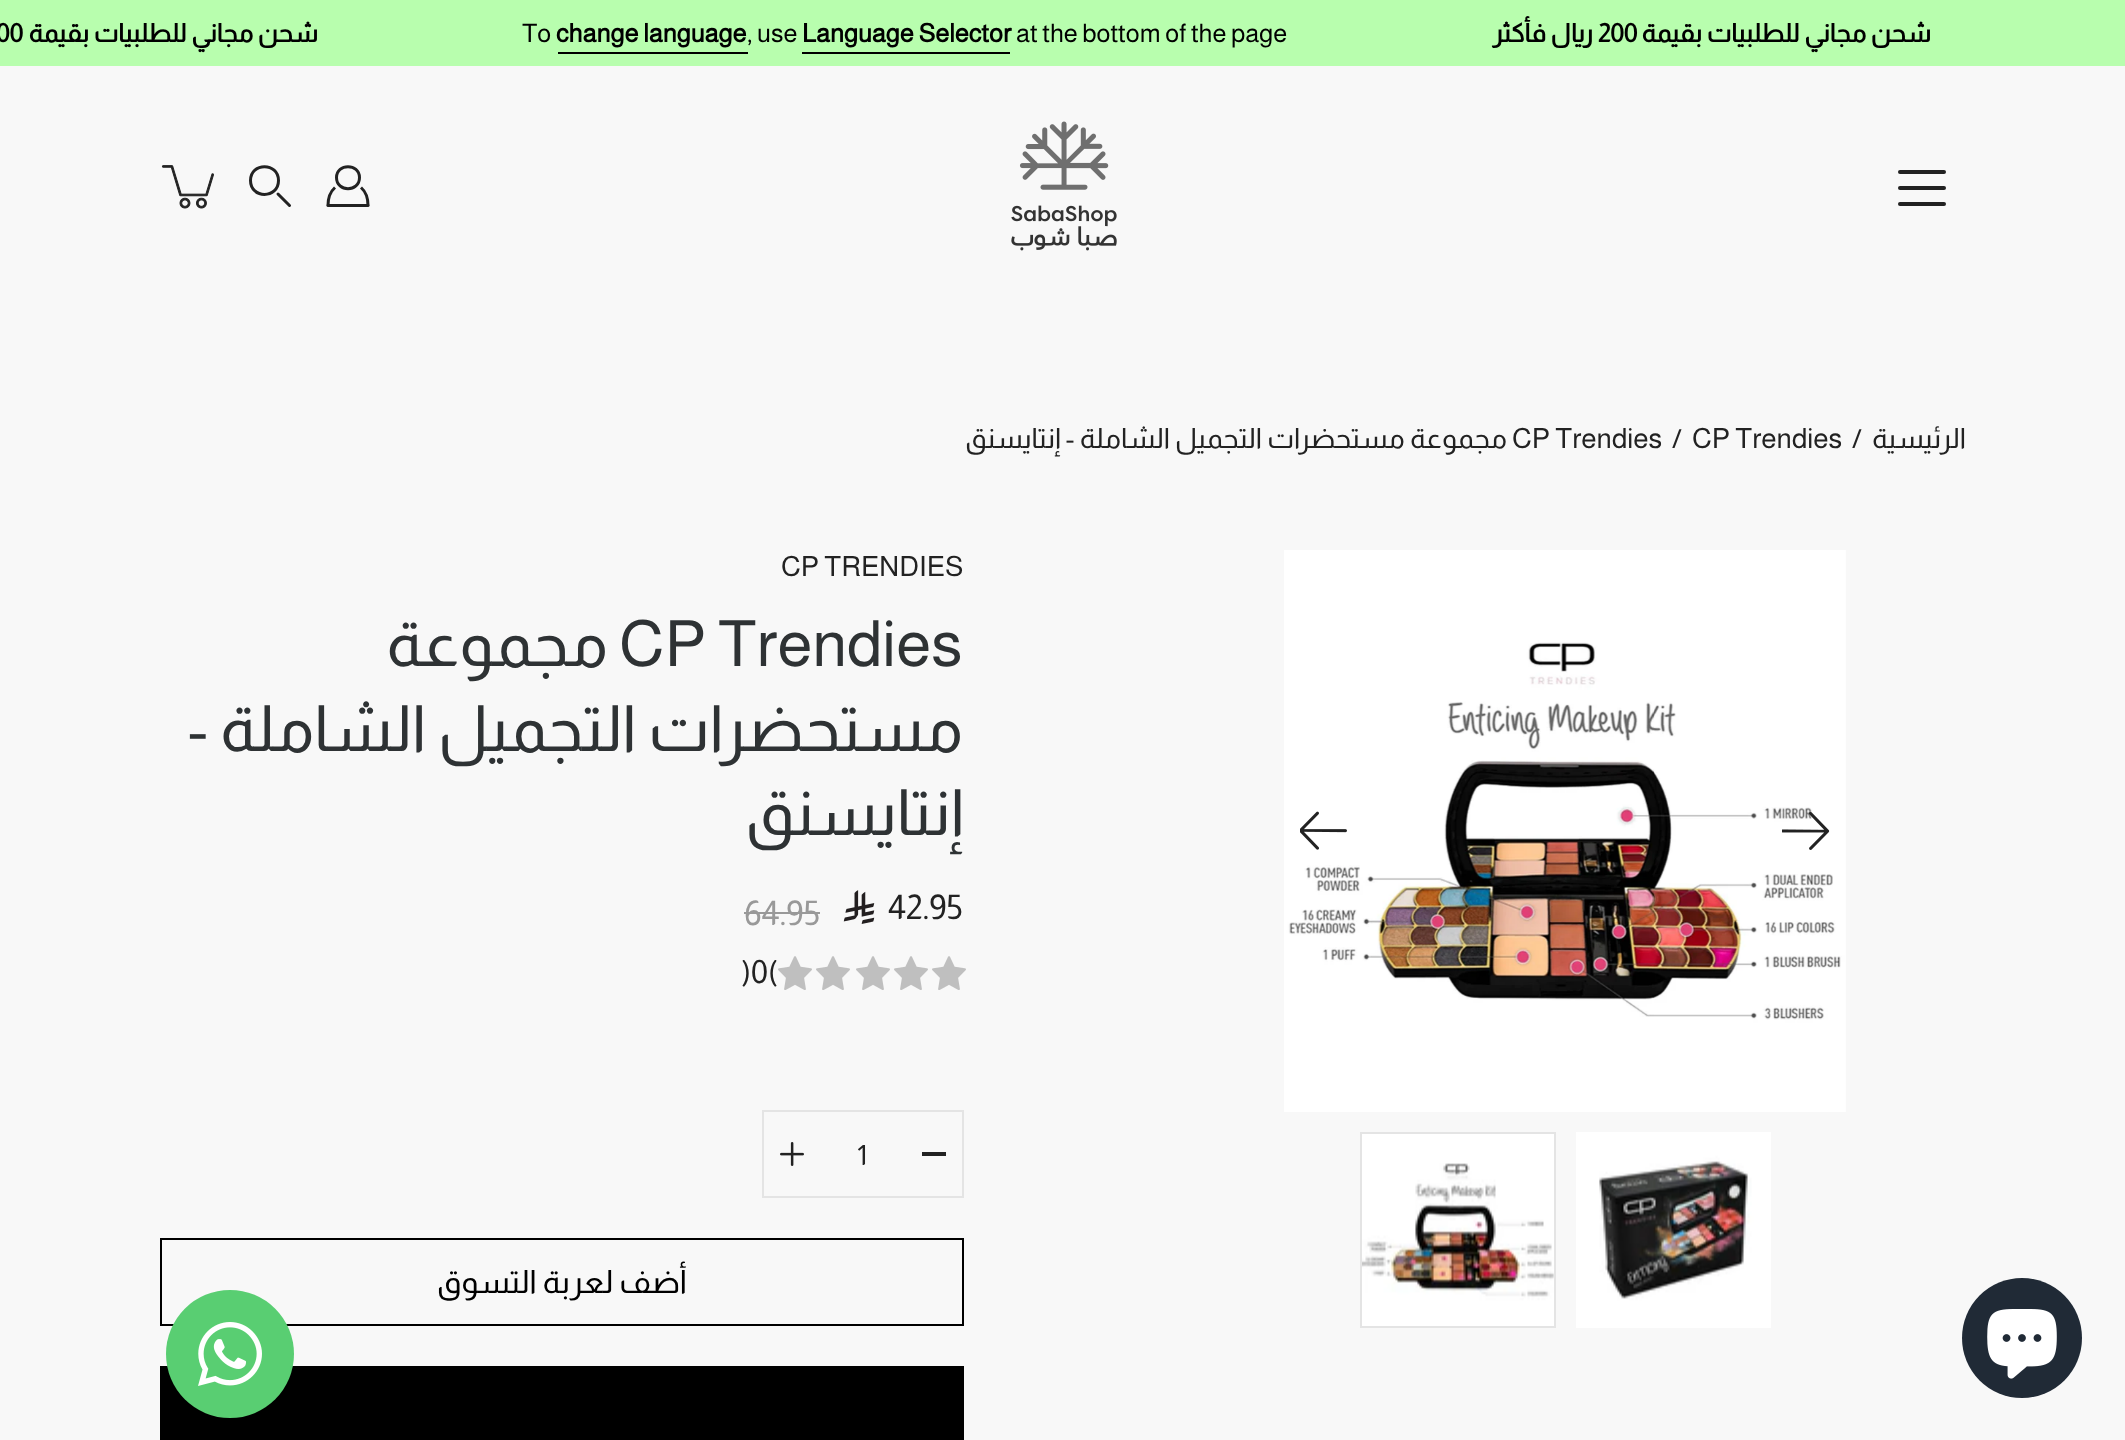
<svg xmlns="http://www.w3.org/2000/svg" width="2125" height="1440" viewBox="0 0 2125 1440">
  <rect width="100%" height="100%" fill="#f8f8f8"/>
  <path d="M0 0h2125v66H0z" fill="#b8feae"/>
  <path d="M802 52h208v2H802z" fill="#000"/>
  <path d="M558 52h190v2H558z" fill="#000"/>
  <image x="1011" y="121" width="106" height="130" href="img/1.png"/>
  <rect x="1898" y="186" width="48" height="4" rx="2" fill="#222"/>
  <rect x="1898" y="170" width="48" height="4" rx="2" fill="#222"/>
  <rect x="1898" y="202" width="48" height="4" rx="2" fill="#222"/>
  <path d="M359.5 177.5C359.5 192.5 336.5 192.5 336.5 177.5C336.5 163 359.5 163 359.5 177.5Z" fill="none" stroke="#222" stroke-width="3"/>
  <path d="M335 187.5C330.5 191.5 328 197.5 328 205.5M361 187.5C365.5 191.5 368 197.5 368 205.5" fill="none" stroke="#222" stroke-width="3" stroke-linejoin="round"/>
  <path d="M328 205.5H368" fill="none" stroke="#222" stroke-width="3" stroke-linecap="round" stroke-linejoin="round"/>
  <path d="M278.5 180.5C278.5 199 250.5 199 250.5 180.5C250.5 162 278.5 162 278.5 180.5Z" fill="none" stroke="#222" stroke-width="3"/>
  <path d="M278 194L289.5 205.5" fill="none" stroke="#222" stroke-width="3" stroke-linecap="round"/>
  <image x="161" y="165" width="53" height="44" href="img/2.png"/>
  <image x="1284" y="550" width="562" height="562" href="img/3.png"/>
  <image x="1782" y="812" width="48" height="38" href="img/4.png"/>
  <image x="1300" y="811" width="47" height="39" href="img/5.png"/>
  <image x="1576" y="1132" width="195" height="196" href="img/6.png"/>
  <image x="1362" y="1134" width="192" height="192" href="img/7.png"/>
  <path d="M1361 1133h194v194H1361z" fill="none" stroke="#e4e4e4" stroke-width="2"/>
  <image x="843" y="890" width="32" height="34" href="img/8.png"/>
  <path d="M744 912h76v2H744z" fill="#999"/>
  <image x="932" y="956" width="34" height="34" href="img/9.png"/>
  <image x="894" y="956" width="34" height="34" href="img/9.png"/>
  <image x="856" y="956" width="34" height="34" href="img/9.png"/>
  <image x="816" y="956" width="34" height="34" href="img/9.png"/>
  <image x="778" y="956" width="34" height="34" href="img/9.png"/>
  <path d="M763 1111h200v86H763z" fill="none" stroke="#e4e4e4" stroke-width="2"/>
  <path d="M922 1152h24v4H922z" fill="#222"/>
  <image x="780" y="1142" width="24" height="24" href="img/10.png"/>
  <path d="M161 1239h802v86H161z" fill="none" stroke="#000" stroke-width="2"/>
  <path d="M160 1366h804v74H160z" fill="#000"/>
  <circle cx="2022" cy="1338" r="60" fill="#202a36"/>
  <image x="1987" y="1309" width="70" height="70" href="img/11.png"/>
  <circle cx="230" cy="1354" r="64" fill="#59ce72"/>
  <image x="198" y="1322" width="64" height="64" href="img/12.png"/>
  <text x="1931" y="42" font-family="Almarai" font-size="25.6" font-weight="bold" direction="rtl" fill="#000">شحن مجاني للطلبيات بقيمة</text>
  <text x="1598" y="42" font-family="Almarai" font-size="25.6" font-weight="bold" fill="#000">200</text>
  <text x="1593" y="42" font-family="Almarai" font-size="25.6" font-weight="bold" direction="rtl" fill="#000">ريال فأكثر</text>
  <text x="1016" y="42" font-family="Almarai" font-size="25.6" fill="#000">at the bottom of the page</text>
  <text x="802" y="42" font-family="Almarai" font-size="25.6" font-weight="bold" fill="#000">Language Selector</text>
  <text x="747" y="42" font-family="Almarai" font-size="25.6" fill="#000">, use</text>
  <text x="556" y="42" font-family="Almarai" font-size="25.6" font-weight="bold" fill="#000">change language</text>
  <text x="522" y="42" font-family="Almarai" font-size="25.6" fill="#000">To</text>
  <text x="318" y="42" font-family="Almarai" font-size="25.6" font-weight="bold" direction="rtl" fill="#000">شحن مجاني للطلبيات بقيمة</text>
  <text x="-4" y="42" font-family="Almarai" font-size="25.6" font-weight="bold" fill="#000">00</text>
  <text x="1966" y="448" font-family="Almarai" font-size="28" direction="rtl" fill="#222">الرئيسية</text>
  <g font-family="Almarai" font-size="28" fill="#222">
    <text x="1852" y="448">/</text>
    <text x="1692" y="448">CP Trendies</text>
    <text x="1672" y="448">/</text>
    <text x="1512" y="448">CP Trendies</text>
  </g>
  <text x="1507" y="448" font-family="Almarai" font-size="28" direction="rtl" fill="#222">مجموعة مستحضرات التجميل الشاملة - إنتايسنق</text>
  <text x="781" y="576" font-family="Almarai" font-size="28" fill="#222">CP TRENDIES</text>
  <text x="619" y="666" font-family="Almarai" font-size="64" fill="#2e3234">CP Trendies</text>
  <g font-family="Almarai" font-size="64" direction="rtl" fill="#2e3234">
    <text x="608" y="666">مجموعة</text>
    <text x="963" y="751">مستحضرات التجميل الشاملة -</text>
    <text x="963" y="835">إنتايسنق</text>
  </g>
  <text x="888" y="919" font-family="Almarai" font-size="34" fill="#222">42.95</text>
  <text x="744" y="925" font-family="Almarai" font-size="34" fill="#999">64.95</text>
  <g font-family="Almarai" font-size="32" fill="#222">
    <text x="768" y="983">(</text>
    <text x="751" y="983">0</text>
    <text x="741" y="983">)</text>
  </g>
  <text x="857" y="1165" font-family="Almarai" font-size="28" fill="#222">1</text>
  <text x="687" y="1293" font-family="Almarai" font-size="32" direction="rtl" fill="#000">أضف لعربة التسوق</text>
</svg>
